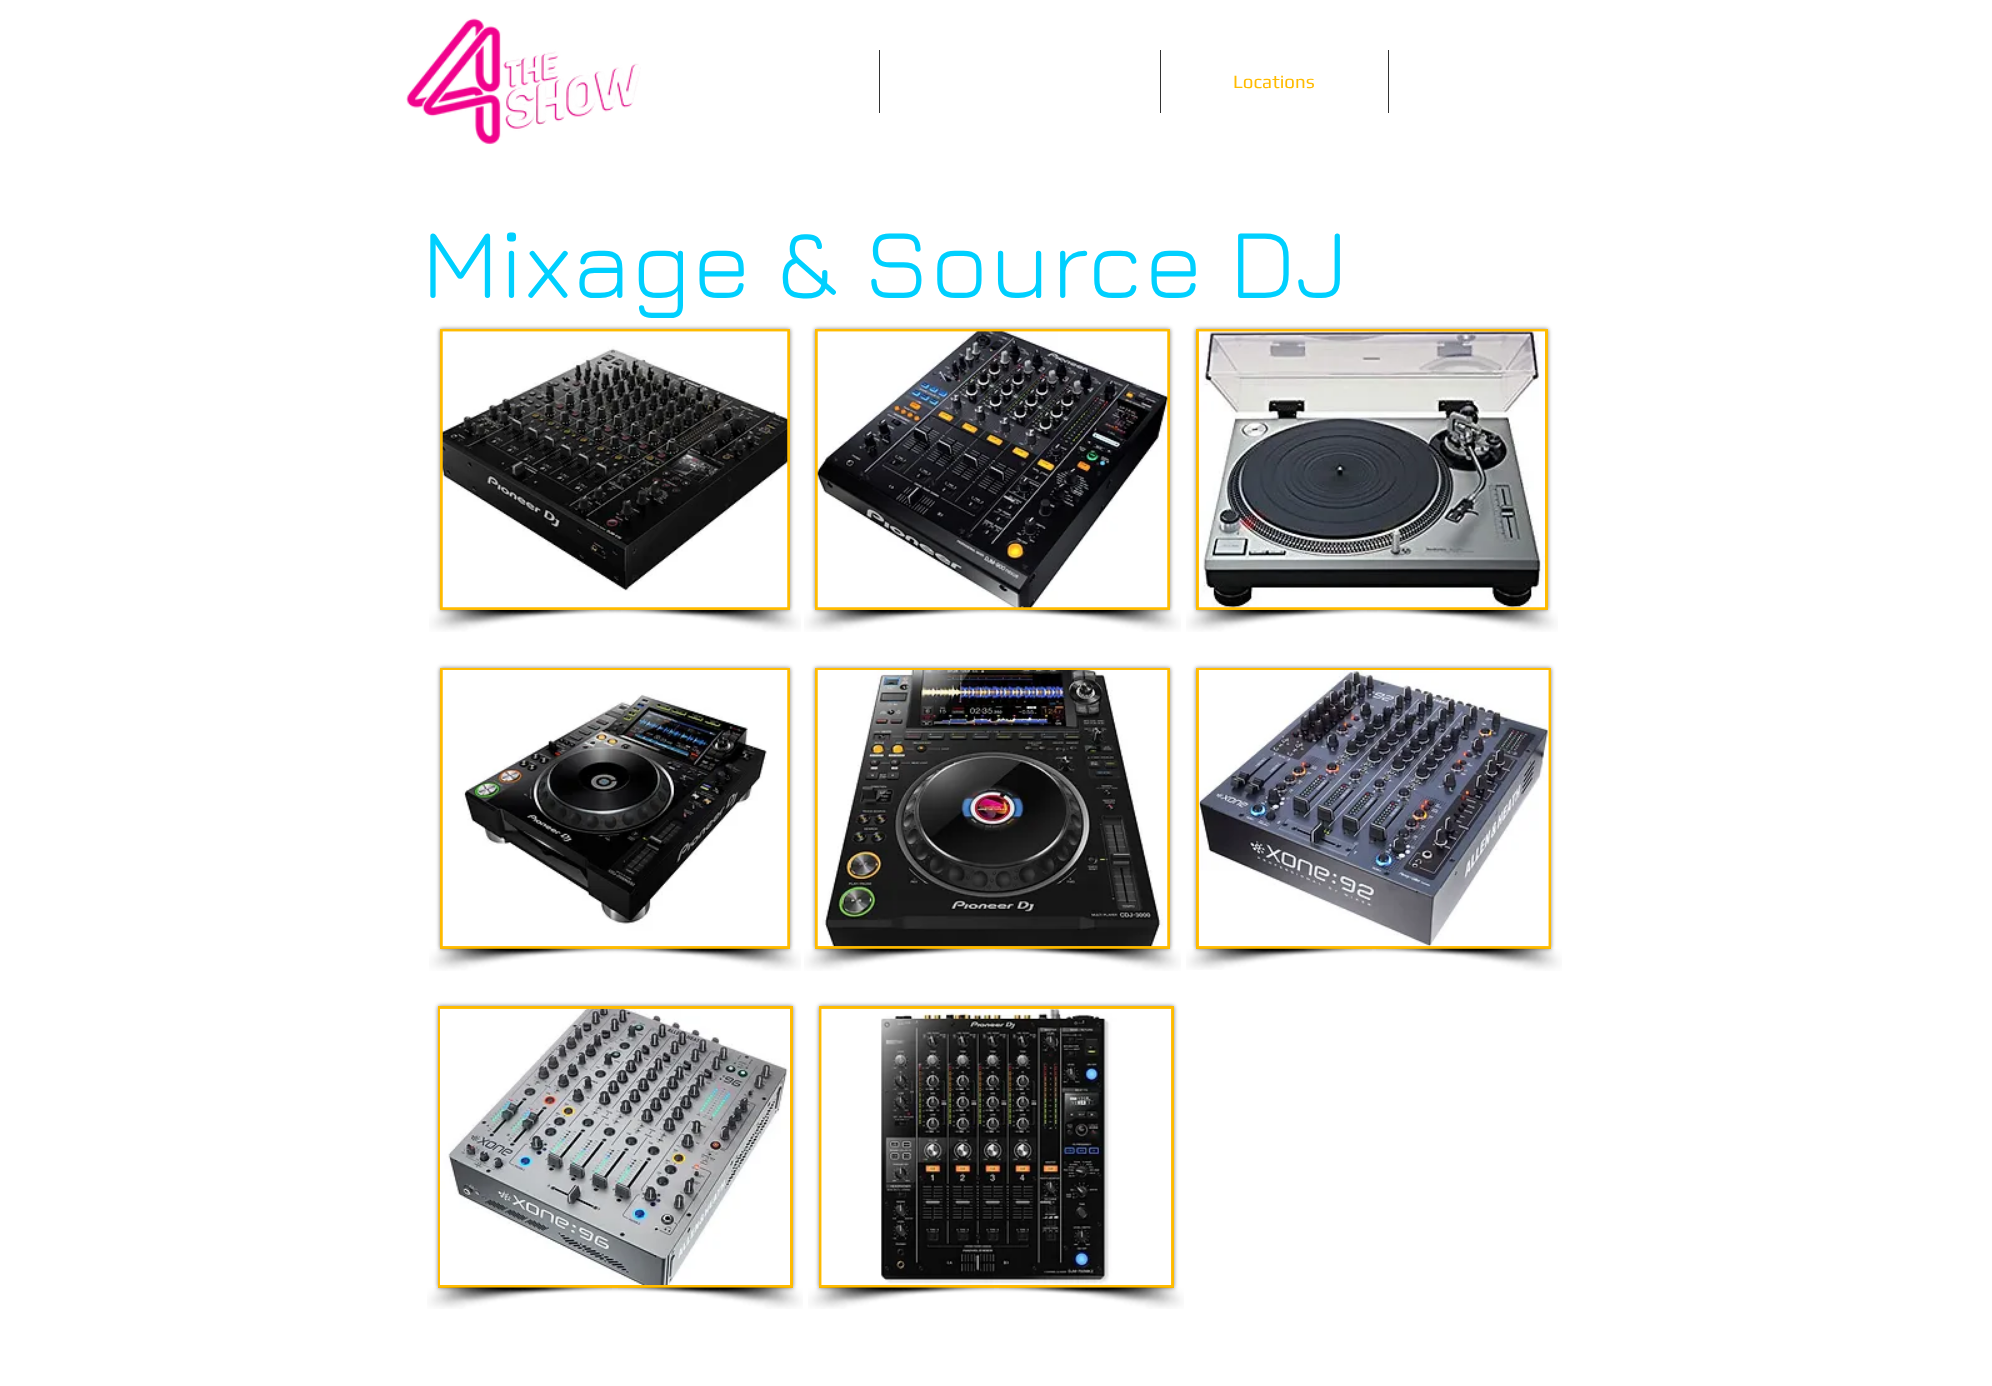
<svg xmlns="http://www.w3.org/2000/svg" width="1992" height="1386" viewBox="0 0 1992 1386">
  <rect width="100%" height="100%" fill="#fff"/>
  <image x="406" y="18" width="235" height="127" href="img/1.png"/>
  <path d="M879 50h1v63H879z" fill="#333"/>
  <path d="M1160 50h1v63H1160z" fill="#333"/>
  <path d="M1388 50h1v63H1388z" fill="#333"/>
  <path d="M440 329h350v281H440z" fill="#00000080" filter="blur(2px)"/>
  <path d="M440 329h350v281H440z" fill="#fb0"/>
  <image x="442" y="331" width="346" height="277" href="img/2.png"/>
  <image x="429" y="610" width="192" height="22" href="img/3.png"/>
  <image x="609" y="610" width="192" height="22" href="img/4.png"/>
  <path d="M815 329h355v281H815z" fill="#00000080" filter="blur(2px)"/>
  <path d="M815 329h355v281H815z" fill="#fb0"/>
  <image x="817" y="331" width="351" height="277" href="img/5.png"/>
  <image x="804" y="610" width="192" height="22" href="img/6.png"/>
  <image x="989" y="610" width="192" height="22" href="img/7.png"/>
  <path d="M1196 329h352v281H1196z" fill="#00000080" filter="blur(2px)"/>
  <path d="M1196 329h352v281H1196z" fill="#fb0"/>
  <image x="1198" y="331" width="347" height="277" href="img/8.png"/>
  <image x="1186" y="610" width="191" height="22" href="img/9.png"/>
  <image x="1367" y="610" width="191" height="22" href="img/10.png"/>
  <path d="M440 668h350v281H440z" fill="#00000080" filter="blur(2px)"/>
  <path d="M440 668h350v281H440z" fill="#fb0"/>
  <image x="442" y="670" width="346" height="277" href="img/11.png"/>
  <image x="429" y="948" width="186" height="23" href="img/12.png"/>
  <image x="615" y="948" width="186" height="23" href="img/13.png"/>
  <path d="M815 668h355v281H815z" fill="#00000080" filter="blur(2px)"/>
  <path d="M815 668h355v281H815z" fill="#fb0"/>
  <image x="817" y="670" width="351" height="277" href="img/14.png"/>
  <image x="804" y="948" width="186" height="23" href="img/15.png"/>
  <image x="995" y="948" width="186" height="23" href="img/16.png"/>
  <path d="M1196 668h355v281H1196z" fill="#00000080" filter="blur(2px)"/>
  <path d="M1196 668h355v281H1196z" fill="#fb0"/>
  <image x="1198" y="670" width="351" height="277" href="img/17.png"/>
  <image x="1186" y="948" width="186" height="22" href="img/18.png"/>
  <image x="1376" y="948" width="186" height="23" href="img/19.png"/>
  <path d="M438 1006h355v282H438z" fill="#00000080" filter="blur(2px)"/>
  <path d="M438 1006h355v282H438z" fill="#fb0"/>
  <image x="440" y="1008" width="350" height="277" href="img/20.png"/>
  <image x="427" y="1287" width="185" height="22" href="img/21.png"/>
  <image x="618" y="1287" width="185" height="22" href="img/22.png"/>
  <path d="M819 1006h355v282H819z" fill="#00000080" filter="blur(2px)"/>
  <path d="M819 1006h355v282H819z" fill="#fb0"/>
  <image x="821" y="1008" width="351" height="277" href="img/23.png"/>
  <image x="808" y="1287" width="186" height="22" href="img/24.png"/>
  <image x="999" y="1287" width="185" height="22" href="img/25.png"/>
  <text x="1233" y="88" font-family="Play" font-size="18.75" fill="#fb0">Locations</text>
  <text x="421" y="298" font-family="Jura" font-size="100" fill="#00d0ff">Mixage &amp; Source DJ</text>
</svg>
